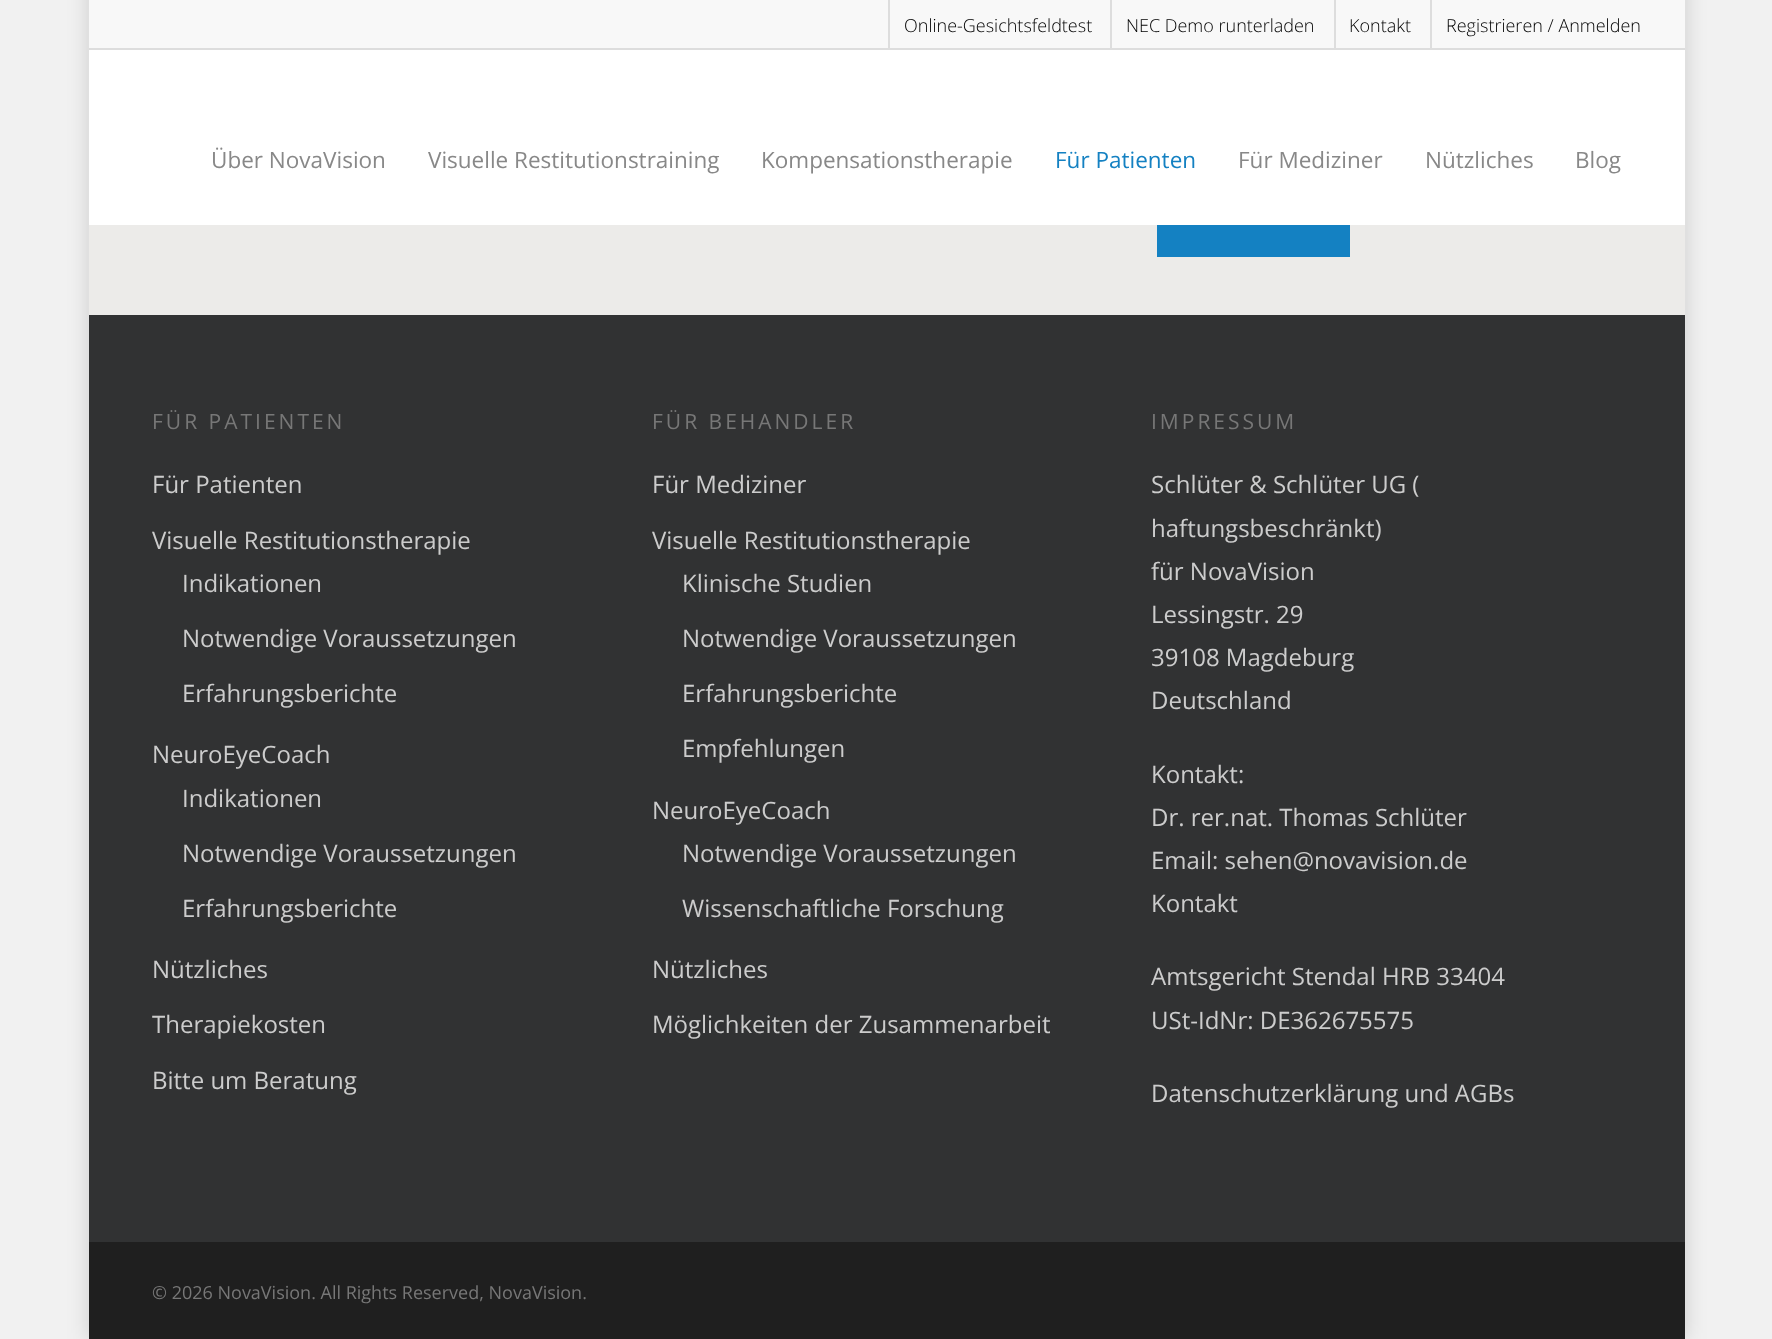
<svg xmlns="http://www.w3.org/2000/svg" width="1772" height="1339" viewBox="0 0 1772 1339">
  <rect width="100%" height="100%" fill="#f1f1f1"/>
  <path d="M89 -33h1596v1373H89z" fill="#00000026" filter="blur(11px)"/>
  <path d="M89 0h1596v48H89z" fill="#f8f8f8"/>
  <path d="M89 48h1596v2H89z" fill="#ddd"/>
  <path d="M888 0h2v50H888z" fill="#ddd"/>
  <path d="M1110 0h2v50H1110z" fill="#ddd"/>
  <path d="M1334 0h2v50H1334z" fill="#ddd"/>
  <path d="M1430 0h2v50H1430z" fill="#ddd"/>
  <path d="M89 50h1596v175H89z" fill="#fff"/>
  <path d="M89 315h1596v927H89z" fill="#313233"/>
  <path d="M89 225h1596v90H89z" fill="#ecebe9"/>
  <path d="M1157 225h193v32H1157z" fill="#1481c2"/>
  <path d="M89 1242h1596v97H89z" fill="#1f1f1f"/>
  <g font-family="Open Sans" font-size="18" font-weight="300" fill="#000">
    <text x="904" y="32">Online-Gesichtsfeldtest</text>
    <text x="1126" y="32">NEC Demo runterladen</text>
    <text x="1349" y="32">Kontakt</text>
    <text x="1446" y="32">Registrieren / Anmelden</text>
  </g>
  <g font-family="Open Sans" font-size="22.5" fill="#888">
    <text x="211" y="168">Über NovaVision</text>
    <text x="428" y="168">Visuelle Restitutionstraining</text>
    <text x="761" y="168">Kompensationstherapie</text>
  </g>
  <text x="1055" y="168" font-family="Open Sans" font-size="22.5" fill="#1481c2">Für Patienten</text>
  <g font-family="Open Sans" font-size="22.5" fill="#888">
    <text x="1238" y="168">Für Mediziner</text>
    <text x="1425" y="168">Nützliches</text>
    <text x="1575" y="168">Blog</text>
  </g>
  <text x="152" y="429" font-family="Open Sans" font-size="21" letter-spacing="3" fill="#777">FÜR PATIENTEN</text>
  <g font-family="Open Sans" font-size="24" fill="#ccc">
    <text x="152" y="493">Für Patienten</text>
    <text x="152" y="549">Visuelle Restitutionstherapie</text>
    <text x="182" y="592">Indikationen</text>
    <text x="182" y="647">Notwendige Voraussetzungen</text>
    <text x="182" y="702">Erfahrungsberichte</text>
    <text x="152" y="763">NeuroEyeCoach</text>
    <text x="182" y="807">Indikationen</text>
    <text x="182" y="862">Notwendige Voraussetzungen</text>
    <text x="182" y="917">Erfahrungsberichte</text>
    <text x="152" y="978">Nützliches</text>
    <text x="152" y="1033">Therapiekosten</text>
    <text x="152" y="1089">Bitte um Beratung</text>
  </g>
  <text x="652" y="429" font-family="Open Sans" font-size="21" letter-spacing="3" fill="#777">FÜR BEHANDLER</text>
  <g font-family="Open Sans" font-size="24" fill="#ccc">
    <text x="652" y="493">Für Mediziner</text>
    <text x="652" y="549">Visuelle Restitutionstherapie</text>
    <text x="682" y="592">Klinische Studien</text>
    <text x="682" y="647">Notwendige Voraussetzungen</text>
    <text x="682" y="702">Erfahrungsberichte</text>
    <text x="682" y="757">Empfehlungen</text>
    <text x="652" y="819">NeuroEyeCoach</text>
    <text x="682" y="862">Notwendige Voraussetzungen</text>
    <text x="682" y="917">Wissenschaftliche Forschung</text>
    <text x="652" y="978">Nützliches</text>
    <text x="652" y="1033">Möglichkeiten der Zusammenarbeit</text>
  </g>
  <text x="1151" y="429" font-family="Open Sans" font-size="21" letter-spacing="3" fill="#777">IMPRESSUM</text>
  <g font-family="Open Sans" font-size="24" fill="#ccc">
    <text x="1151" y="493">Schlüter &amp; Schlüter UG (</text>
    <text x="1151" y="537">haftungsbeschränkt)</text>
    <text x="1151" y="580">für NovaVision</text>
    <text x="1151" y="623">Lessingstr. 29</text>
    <text x="1151" y="666">39108 Magdeburg</text>
    <text x="1151" y="709">Deutschland</text>
    <text x="1151" y="783">Kontakt:</text>
    <text x="1151" y="826">Dr. rer.nat. Thomas Schlüter</text>
    <text x="1151" y="869">Email: sehen@novavision.de</text>
    <text x="1151" y="912">Kontakt</text>
    <text x="1151" y="985">Amtsgericht Stendal HRB 33404</text>
    <text x="1151" y="1029">USt-IdNr: DE362675575</text>
    <text x="1151" y="1102">Datenschutzerklärung und AGBs</text>
  </g>
  <text x="152" y="1299" font-family="Open Sans" font-size="18" fill="#777">© 2026 NovaVision. All Rights Reserved, NovaVision.</text>
</svg>
